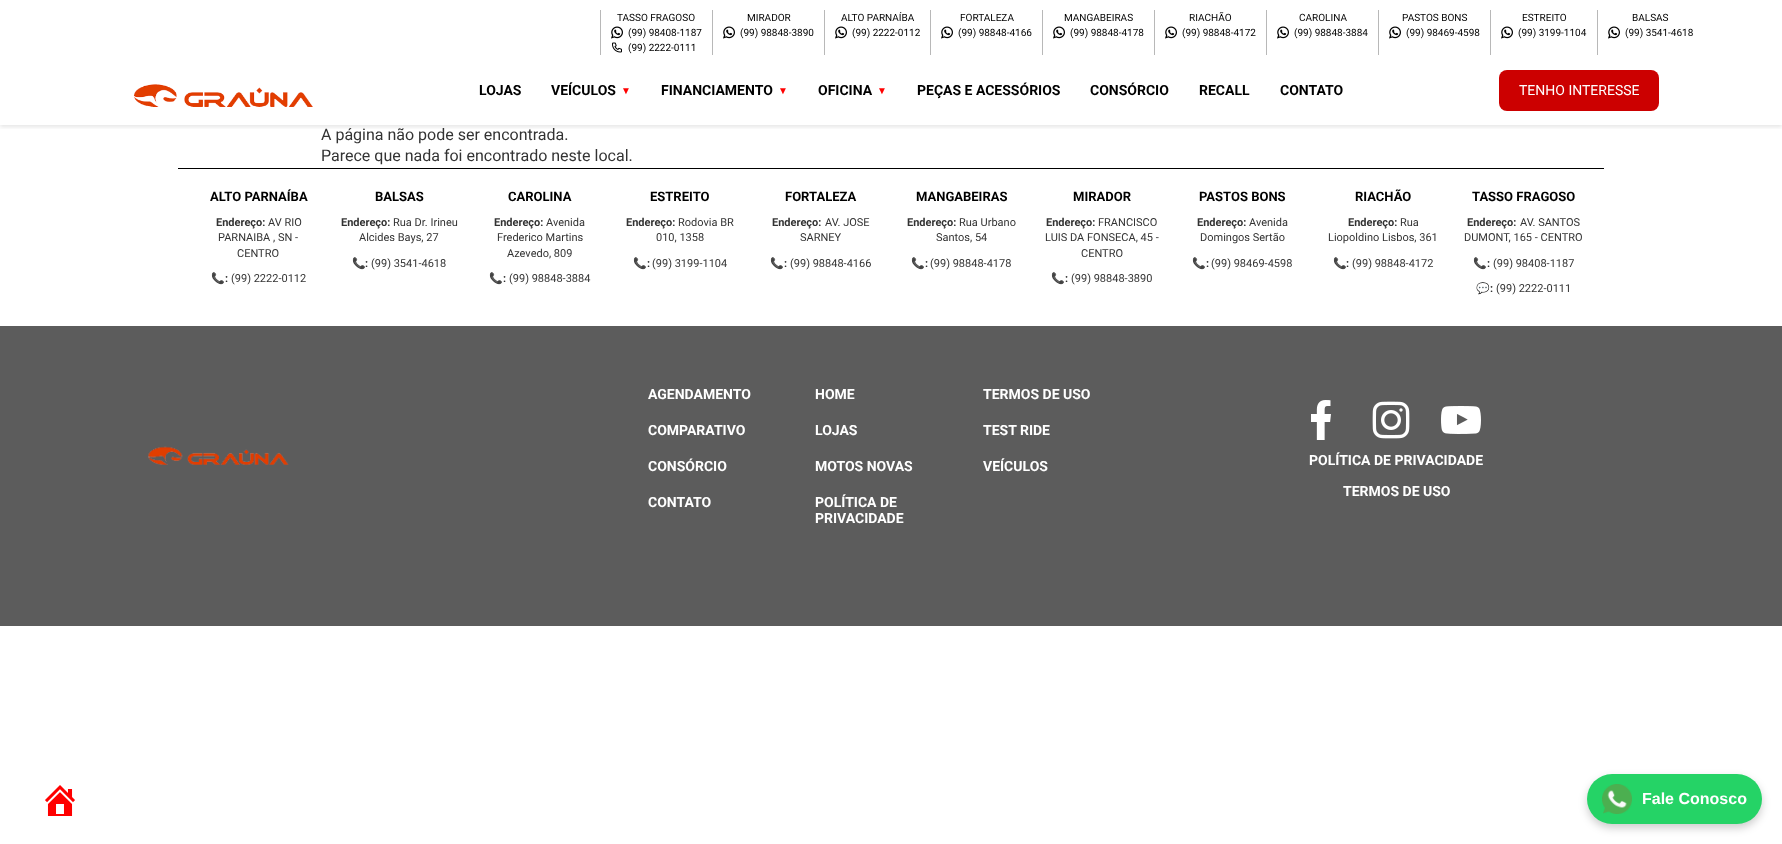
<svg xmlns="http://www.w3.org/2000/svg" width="1782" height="844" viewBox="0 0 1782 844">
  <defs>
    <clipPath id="clip1"><path d="M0 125h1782v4H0z"/></clipPath>
  </defs>
  <rect width="100%" height="100%" fill="#fff"/>
  <g clip-path="url(#clip1)">
    <path d="M0 2h1782v125H0z" fill="#0000001a" filter="blur(2px)"/>
  </g>
  <path d="M600 10h1v45H600z" fill="#b8b8b8"/>
  <image x="611" y="26" width="12" height="13" href="img/1.png"/>
  <image x="612" y="42" width="10" height="11" href="img/2.png"/>
  <path d="M712 10h1v45H712z" fill="#b8b8b8"/>
  <image x="723" y="26" width="12" height="13" href="img/1.png"/>
  <path d="M824 10h1v45H824z" fill="#b8b8b8"/>
  <image x="835" y="26" width="12" height="13" href="img/1.png"/>
  <path d="M930 10h1v45H930z" fill="#b8b8b8"/>
  <image x="941" y="26" width="12" height="13" href="img/1.png"/>
  <path d="M1042 10h1v45H1042z" fill="#b8b8b8"/>
  <image x="1053" y="26" width="12" height="13" href="img/1.png"/>
  <path d="M1154 10h1v45H1154z" fill="#b8b8b8"/>
  <image x="1165" y="26" width="12" height="13" href="img/1.png"/>
  <path d="M1266 10h1v45H1266z" fill="#b8b8b8"/>
  <image x="1277" y="26" width="12" height="13" href="img/1.png"/>
  <path d="M1378 10h1v45H1378z" fill="#b8b8b8"/>
  <image x="1389" y="26" width="12" height="13" href="img/1.png"/>
  <path d="M1490 10h1v45H1490z" fill="#b8b8b8"/>
  <image x="1501" y="26" width="12" height="13" href="img/1.png"/>
  <path d="M1597 10h1v45H1597z" fill="#b8b8b8"/>
  <image x="1608" y="26" width="12" height="13" href="img/1.png"/>
  <image x="133" y="84" width="180" height="23" href="img/3.png"/>
  <rect x="1499" y="70" width="160" height="41" rx="8" fill="#c00"/>
  <path d="M178 168h1426v1H178z" fill="#000"/>
  <path d="M0 326h1782v300H0z" fill="#5c5c5c"/>
  <image x="148" y="446" width="141" height="19" href="img/4.png"/>
  <image x="1311" y="400" width="20" height="40" href="img/5.png"/>
  <image x="1372" y="401" width="38" height="38" href="img/6.png"/>
  <image x="1441" y="406" width="40" height="28" href="img/7.png"/>
  <image x="45" y="785" width="30" height="31" href="img/8.png"/>
  <rect x="1587" y="778" width="175" height="50" rx="25" fill="#00000033" filter="blur(4px)"/>
  <rect x="1587" y="774" width="175" height="50" rx="25" fill="#25d366"/>
  <image x="1602" y="784" width="30" height="30" href="img/9.png"/>
  <g font-family="Roboto" font-size="10" fill="#000">
    <text x="617" y="21">TASSO FRAGOSO</text>
    <text x="628" y="36">(99) 98408-1187</text>
    <text x="628" y="51">(99) 2222-0111</text>
    <text x="747" y="21">MIRADOR</text>
    <text x="740" y="36">(99) 98848-3890</text>
    <text x="841" y="21">ALTO PARNAÍBA</text>
    <text x="852" y="36">(99) 2222-0112</text>
    <text x="960" y="21">FORTALEZA</text>
    <text x="958" y="36">(99) 98848-4166</text>
    <text x="1064" y="21">MANGABEIRAS</text>
    <text x="1070" y="36">(99) 98848-4178</text>
    <text x="1189" y="21">RIACHÃO</text>
    <text x="1182" y="36">(99) 98848-4172</text>
    <text x="1299" y="21">CAROLINA</text>
    <text x="1294" y="36">(99) 98848-3884</text>
    <text x="1402" y="21">PASTOS BONS</text>
    <text x="1406" y="36">(99) 98469-4598</text>
    <text x="1522" y="21">ESTREITO</text>
    <text x="1518" y="36">(99) 3199-1104</text>
    <text x="1632" y="21">BALSAS</text>
    <text x="1625" y="36">(99) 3541-4618</text>
  </g>
  <g font-family="Roboto" font-size="14" font-weight="bold" fill="#000">
    <text x="479" y="95">LOJAS</text>
    <text x="551" y="95">VEÍCULOS</text>
  </g>
  <text x="621" y="94" font-family="Liberation Sans" font-size="10" font-weight="bold" fill="#f00">▼</text>
  <text x="661" y="95" font-family="Roboto" font-size="14" font-weight="bold" fill="#000">FINANCIAMENTO</text>
  <text x="778" y="94" font-family="Liberation Sans" font-size="10" font-weight="bold" fill="#f00">▼</text>
  <text x="818" y="95" font-family="Roboto" font-size="14" font-weight="bold" fill="#000">OFICINA</text>
  <text x="877" y="94" font-family="Liberation Sans" font-size="10" font-weight="bold" fill="#f00">▼</text>
  <g font-family="Roboto" font-size="14" font-weight="bold" fill="#000">
    <text x="917" y="95">PEÇAS E ACESSÓRIOS</text>
    <text x="1090" y="95">CONSÓRCIO</text>
    <text x="1199" y="95">RECALL</text>
    <text x="1280" y="95">CONTATO</text>
  </g>
  <text x="1519" y="95" font-family="Roboto" font-size="14" fill="#fff">TENHO INTERESSE</text>
  <g font-family="Roboto" font-size="16" fill="#333">
    <text x="321" y="140">A página não pode ser encontrada.</text>
    <text x="321" y="161">Parece que nada foi encontrado neste local.</text>
  </g>
  <text x="210" y="201" font-family="Roboto" font-size="13" font-weight="bold" fill="#000">ALTO PARNAÍBA</text>
  <text x="216" y="226" font-family="Roboto" font-size="11" font-weight="bold" fill="#333">Endereço:</text>
  <g font-family="Roboto" font-size="11" fill="#333">
    <text x="268" y="226">AV RIO</text>
    <text x="218" y="241">PARNAIBA , SN -</text>
    <text x="237" y="257">CENTRO</text>
  </g>
  <text x="211" y="282" font-family="Noto Color Emoji" font-size="11" font-weight="bold" fill="#333">📞</text>
  <text x="225" y="282" font-family="Roboto" font-size="11" font-weight="bold" fill="#333">:</text>
  <text x="231" y="282" font-family="Roboto" font-size="11" fill="#333">(99) 2222-0112</text>
  <text x="375" y="201" font-family="Roboto" font-size="13" font-weight="bold" fill="#000">BALSAS</text>
  <text x="341" y="226" font-family="Roboto" font-size="11" font-weight="bold" fill="#333">Endereço:</text>
  <g font-family="Roboto" font-size="11" fill="#333">
    <text x="393" y="226">Rua Dr. Irineu</text>
    <text x="359" y="241">Alcides Bays, 27</text>
  </g>
  <text x="352" y="267" font-family="Noto Color Emoji" font-size="11" font-weight="bold" fill="#333">📞</text>
  <text x="365" y="267" font-family="Roboto" font-size="11" font-weight="bold" fill="#333">:</text>
  <text x="371" y="267" font-family="Roboto" font-size="11" fill="#333">(99) 3541-4618</text>
  <text x="508" y="201" font-family="Roboto" font-size="13" font-weight="bold" fill="#000">CAROLINA</text>
  <text x="494" y="226" font-family="Roboto" font-size="11" font-weight="bold" fill="#333">Endereço:</text>
  <g font-family="Roboto" font-size="11" fill="#333">
    <text x="546" y="226">Avenida</text>
    <text x="497" y="241">Frederico Martins</text>
    <text x="507" y="257">Azevedo, 809</text>
  </g>
  <text x="489" y="282" font-family="Noto Color Emoji" font-size="11" font-weight="bold" fill="#333">📞</text>
  <text x="503" y="282" font-family="Roboto" font-size="11" font-weight="bold" fill="#333">:</text>
  <text x="509" y="282" font-family="Roboto" font-size="11" fill="#333">(99) 98848-3884</text>
  <text x="650" y="201" font-family="Roboto" font-size="13" font-weight="bold" fill="#000">ESTREITO</text>
  <text x="626" y="226" font-family="Roboto" font-size="11" font-weight="bold" fill="#333">Endereço:</text>
  <g font-family="Roboto" font-size="11" fill="#333">
    <text x="678" y="226">Rodovia BR</text>
    <text x="656" y="241">010, 1358</text>
  </g>
  <text x="633" y="267" font-family="Noto Color Emoji" font-size="11" font-weight="bold" fill="#333">📞</text>
  <text x="647" y="267" font-family="Roboto" font-size="11" font-weight="bold" fill="#333">:</text>
  <text x="652" y="267" font-family="Roboto" font-size="11" fill="#333">(99) 3199-1104</text>
  <text x="785" y="201" font-family="Roboto" font-size="13" font-weight="bold" fill="#000">FORTALEZA</text>
  <text x="772" y="226" font-family="Roboto" font-size="11" font-weight="bold" fill="#333">Endereço:</text>
  <g font-family="Roboto" font-size="11" fill="#333">
    <text x="825" y="226">AV. JOSE</text>
    <text x="800" y="241">SARNEY</text>
  </g>
  <text x="770" y="267" font-family="Noto Color Emoji" font-size="11" font-weight="bold" fill="#333">📞</text>
  <text x="784" y="267" font-family="Roboto" font-size="11" font-weight="bold" fill="#333">:</text>
  <text x="790" y="267" font-family="Roboto" font-size="11" fill="#333">(99) 98848-4166</text>
  <text x="916" y="201" font-family="Roboto" font-size="13" font-weight="bold" fill="#000">MANGABEIRAS</text>
  <text x="907" y="226" font-family="Roboto" font-size="11" font-weight="bold" fill="#333">Endereço:</text>
  <g font-family="Roboto" font-size="11" fill="#333">
    <text x="959" y="226">Rua Urbano</text>
    <text x="936" y="241">Santos, 54</text>
  </g>
  <text x="911" y="267" font-family="Noto Color Emoji" font-size="11" font-weight="bold" fill="#333">📞</text>
  <text x="925" y="267" font-family="Roboto" font-size="11" font-weight="bold" fill="#333">:</text>
  <text x="930" y="267" font-family="Roboto" font-size="11" fill="#333">(99) 98848-4178</text>
  <text x="1073" y="201" font-family="Roboto" font-size="13" font-weight="bold" fill="#000">MIRADOR</text>
  <text x="1046" y="226" font-family="Roboto" font-size="11" font-weight="bold" fill="#333">Endereço:</text>
  <g font-family="Roboto" font-size="11" fill="#333">
    <text x="1098" y="226">FRANCISCO</text>
    <text x="1045" y="241">LUIS DA FONSECA, 45 -</text>
    <text x="1081" y="257">CENTRO</text>
  </g>
  <text x="1051" y="282" font-family="Noto Color Emoji" font-size="11" font-weight="bold" fill="#333">📞</text>
  <text x="1065" y="282" font-family="Roboto" font-size="11" font-weight="bold" fill="#333">:</text>
  <text x="1071" y="282" font-family="Roboto" font-size="11" fill="#333">(99) 98848-3890</text>
  <text x="1199" y="201" font-family="Roboto" font-size="13" font-weight="bold" fill="#000">PASTOS BONS</text>
  <text x="1197" y="226" font-family="Roboto" font-size="11" font-weight="bold" fill="#333">Endereço:</text>
  <g font-family="Roboto" font-size="11" fill="#333">
    <text x="1249" y="226">Avenida</text>
    <text x="1200" y="241">Domingos Sertão</text>
  </g>
  <text x="1192" y="267" font-family="Noto Color Emoji" font-size="11" font-weight="bold" fill="#333">📞</text>
  <text x="1206" y="267" font-family="Roboto" font-size="11" font-weight="bold" fill="#333">:</text>
  <text x="1211" y="267" font-family="Roboto" font-size="11" fill="#333">(99) 98469-4598</text>
  <text x="1355" y="201" font-family="Roboto" font-size="13" font-weight="bold" fill="#000">RIACHÃO</text>
  <text x="1348" y="226" font-family="Roboto" font-size="11" font-weight="bold" fill="#333">Endereço:</text>
  <g font-family="Roboto" font-size="11" fill="#333">
    <text x="1400" y="226">Rua</text>
    <text x="1328" y="241">Liopoldino Lisbos, 361</text>
  </g>
  <text x="1333" y="267" font-family="Noto Color Emoji" font-size="11" font-weight="bold" fill="#333">📞</text>
  <text x="1346" y="267" font-family="Roboto" font-size="11" font-weight="bold" fill="#333">:</text>
  <text x="1352" y="267" font-family="Roboto" font-size="11" fill="#333">(99) 98848-4172</text>
  <text x="1472" y="201" font-family="Roboto" font-size="13" font-weight="bold" fill="#000">TASSO FRAGOSO</text>
  <text x="1467" y="226" font-family="Roboto" font-size="11" font-weight="bold" fill="#333">Endereço:</text>
  <g font-family="Roboto" font-size="11" fill="#333">
    <text x="1520" y="226">AV. SANTOS</text>
    <text x="1464" y="241">DUMONT, 165 - CENTRO</text>
  </g>
  <text x="1473" y="267" font-family="Noto Color Emoji" font-size="11" font-weight="bold" fill="#333">📞</text>
  <text x="1487" y="267" font-family="Roboto" font-size="11" font-weight="bold" fill="#333">:</text>
  <text x="1493" y="267" font-family="Roboto" font-size="11" fill="#333">(99) 98408-1187</text>
  <text x="1476" y="292" font-family="Noto Color Emoji" font-size="11" font-weight="bold" fill="#333">💬</text>
  <text x="1490" y="292" font-family="Roboto" font-size="11" font-weight="bold" fill="#333">:</text>
  <text x="1496" y="292" font-family="Roboto" font-size="11" fill="#333">(99) 2222-0111</text>
  <g font-family="Roboto" font-size="14" font-weight="bold" fill="#fff">
    <text x="648" y="399">AGENDAMENTO</text>
    <text x="815" y="399">HOME</text>
    <text x="983" y="399">TERMOS DE USO</text>
    <text x="648" y="435">COMPARATIVO</text>
    <text x="815" y="435">LOJAS</text>
    <text x="983" y="435">TEST RIDE</text>
    <text x="648" y="471">CONSÓRCIO</text>
    <text x="815" y="471">MOTOS NOVAS</text>
    <text x="983" y="471">VEÍCULOS</text>
    <text x="648" y="507">CONTATO</text>
    <text x="815" y="507">POLÍTICA DE</text>
    <text x="815" y="523">PRIVACIDADE</text>
    <text x="1309" y="465">POLÍTICA DE PRIVACIDADE</text>
    <text x="1343" y="496">TERMOS DE USO</text>
  </g>
  <text x="1642" y="804" font-family="Liberation Sans" font-size="16" font-weight="bold" fill="#fff">Fale Conosco</text>
</svg>
